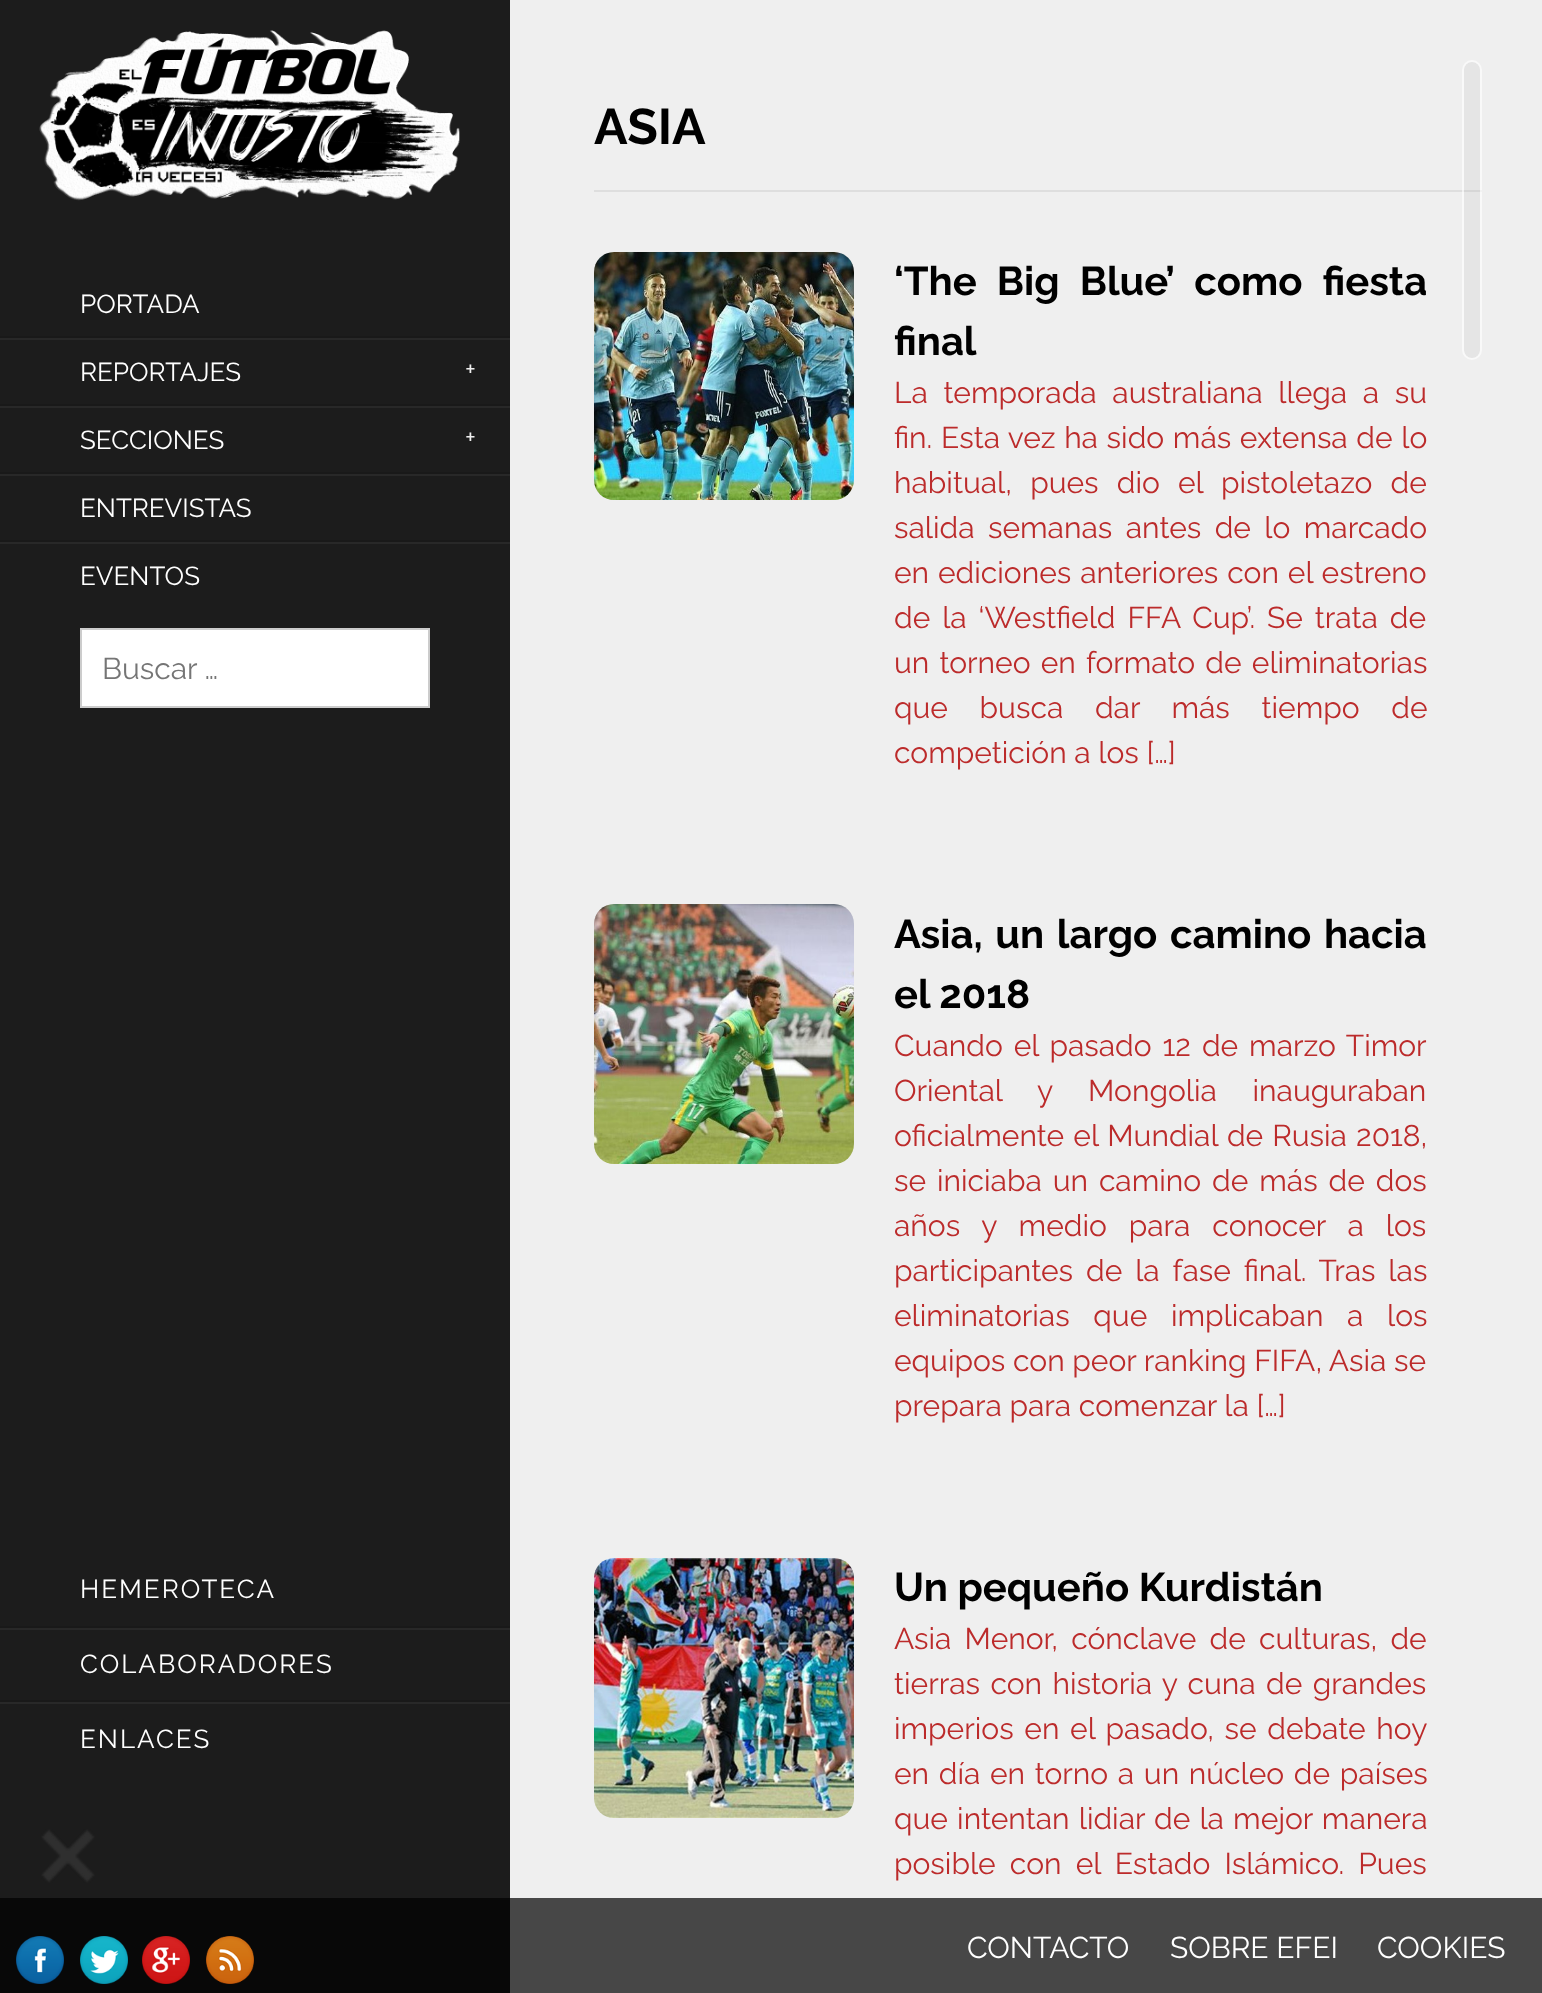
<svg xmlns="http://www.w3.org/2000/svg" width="1542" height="1993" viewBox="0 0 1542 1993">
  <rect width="100%" height="100%" fill="#1c1c1c"/>
  <image x="39" y="30" width="421" height="171" href="img/1.png"/>
  <path d="M0 336h510v2H0z" fill="#191919"/>
  <path d="M0 338h510v2H0z" fill="#282828"/>
  <path d="M0 404h510v2H0z" fill="#191919"/>
  <path d="M0 406h510v2H0z" fill="#282828"/>
  <path d="M0 472h510v2H0z" fill="#191919"/>
  <path d="M0 474h510v2H0z" fill="#282828"/>
  <path d="M0 540h510v2H0z" fill="#191919"/>
  <path d="M0 542h510v2H0z" fill="#282828"/>
  <path d="M81 629h348v78H81z" fill="#fff" stroke="#ccc" stroke-width="2"/>
  <path d="M0 1626h510v2H0z" fill="#191919"/>
  <path d="M0 1628h510v2H0z" fill="#282828"/>
  <path d="M0 1700h510v2H0z" fill="#191919"/>
  <path d="M0 1702h510v2H0z" fill="#282828"/>
  <image x="41" y="1829" width="54" height="54" href="img/2.png"/>
  <path d="M510 0h1032v1993H510z" fill="#efefef"/>
  <path d="M594 190h888v2H594z" fill="#dedede"/>
  <image x="594" y="252" width="260" height="248" href="img/3.png"/>
  <image x="594" y="904" width="260" height="260" href="img/4.png"/>
  <image x="594" y="1558" width="260" height="260" href="img/5.png"/>
  <rect x="1464" y="62" width="16" height="296" rx="8" fill="#9b9b9b1f"/>
  <rect x="1463" y="61" width="18" height="298" rx="9" fill="none" stroke="#ffffff99" stroke-width="2"/>
  <path d="M0 1898h1542v95H0z" fill="#000000b3"/>
  <image x="16" y="1936" width="48" height="48" href="img/6.png"/>
  <image x="80" y="1936" width="48" height="48" href="img/7.png"/>
  <image x="142" y="1936" width="48" height="48" href="img/8.png"/>
  <image x="206" y="1936" width="48" height="48" href="img/9.png"/>
  <g font-family="Raleway" font-size="26" fill="#fff">
    <text x="80" y="313">PORTADA</text>
    <text x="80" y="381">REPORTAJES</text>
  </g>
  <text x="465" y="378" font-family="Raleway" font-size="26" fill="#eee">+</text>
  <text x="80" y="449" font-family="Raleway" font-size="26" fill="#fff">SECCIONES</text>
  <text x="465" y="446" font-family="Raleway" font-size="26" fill="#eee">+</text>
  <g font-family="Raleway" font-size="26" fill="#fff">
    <text x="80" y="517">ENTREVISTAS</text>
    <text x="80" y="585">EVENTOS</text>
  </g>
  <text x="102" y="679" font-family="Raleway" font-size="30" fill="#757575">Buscar …</text>
  <g font-family="Raleway" font-size="26" letter-spacing="2" fill="#fff">
    <text x="80" y="1598">HEMEROTECA</text>
    <text x="80" y="1673">COLABORADORES</text>
    <text x="80" y="1748">ENLACES</text>
  </g>
  <text x="594" y="144" font-family="Raleway" font-size="50" font-weight="bold" fill="#000">ASIA</text>
  <g font-family="Raleway" font-size="40" font-weight="bold" fill="#000">
    <text x="894" y="295" word-spacing="10.5">‘The Big Blue’ como fiesta</text>
    <text x="894" y="355">final</text>
  </g>
  <g font-family="Raleway" font-size="30" fill="#bc2b2b">
    <text x="894" y="403" word-spacing="8">La temporada australiana llega a su</text>
    <text x="894" y="448" word-spacing="1">fin. Esta vez ha sido más extensa de lo</text>
    <text x="894" y="493" word-spacing="10.5">habitual, pues dio el pistoletazo de</text>
    <text x="894" y="538" word-spacing="5.75">salida semanas antes de lo marcado</text>
    <text x="894" y="583" word-spacing="1.25">en ediciones anteriores con el estreno</text>
    <text x="894" y="628" word-spacing="4.25">de la ‘Westfield FFA Cup’. Se trata de</text>
    <text x="894" y="673" word-spacing="2.5">un torneo en formato de eliminatorias</text>
    <text x="894" y="718" word-spacing="24">que busca dar más tiempo de</text>
    <text x="894" y="763">competición a los […]</text>
  </g>
  <g font-family="Raleway" font-size="40" font-weight="bold" fill="#000">
    <text x="894" y="948" word-spacing="3">Asia, un largo camino hacia</text>
    <text x="894" y="1008">el 2018</text>
  </g>
  <g font-family="Raleway" font-size="30" fill="#bc2b2b">
    <text x="894" y="1056" word-spacing="3.25">Cuando el pasado 12 de marzo Timor</text>
    <text x="894" y="1101" word-spacing="28">Oriental y Mongolia inauguraban</text>
    <text x="894" y="1146" word-spacing="1.5">oficialmente el Mundial de Rusia 2018,</text>
    <text x="894" y="1191" word-spacing="3.25">se iniciaba un camino de más de dos</text>
    <text x="894" y="1236" word-spacing="14.25">años y medio para conocer a los</text>
    <text x="894" y="1281" word-spacing="5.25">participantes de la fase final. Tras las</text>
    <text x="894" y="1326" word-spacing="16">eliminatorias que implicaban a los</text>
    <text x="894" y="1371">equipos con peor ranking FIFA, Asia se</text>
    <text x="894" y="1416">prepara para comenzar la […]</text>
  </g>
  <text x="894" y="1601" font-family="Raleway" font-size="40" font-weight="bold" fill="#000">Un pequeño Kurdistán</text>
  <g font-family="Raleway" font-size="30" fill="#bc2b2b">
    <text x="894" y="1649" word-spacing="5.5">Asia Menor, cónclave de culturas, de</text>
    <text x="894" y="1694" word-spacing="2.75">tierras con historia y cuna de grandes</text>
    <text x="894" y="1739" word-spacing="3">imperios en el pasado, se debate hoy</text>
    <text x="894" y="1784" word-spacing="2">en día en torno a un núcleo de países</text>
    <text x="894" y="1829" word-spacing="1.5">que intentan lidiar de la mejor manera</text>
    <text x="894" y="1874" word-spacing="6.5">posible con el Estado Islámico. Pues</text>
  </g>
  <g font-family="Raleway" font-size="30" fill="#fff">
    <text x="967" y="1958">CONTACTO</text>
    <text x="1170" y="1958">SOBRE EFEI</text>
    <text x="1377" y="1958">COOKIES</text>
  </g>
</svg>
